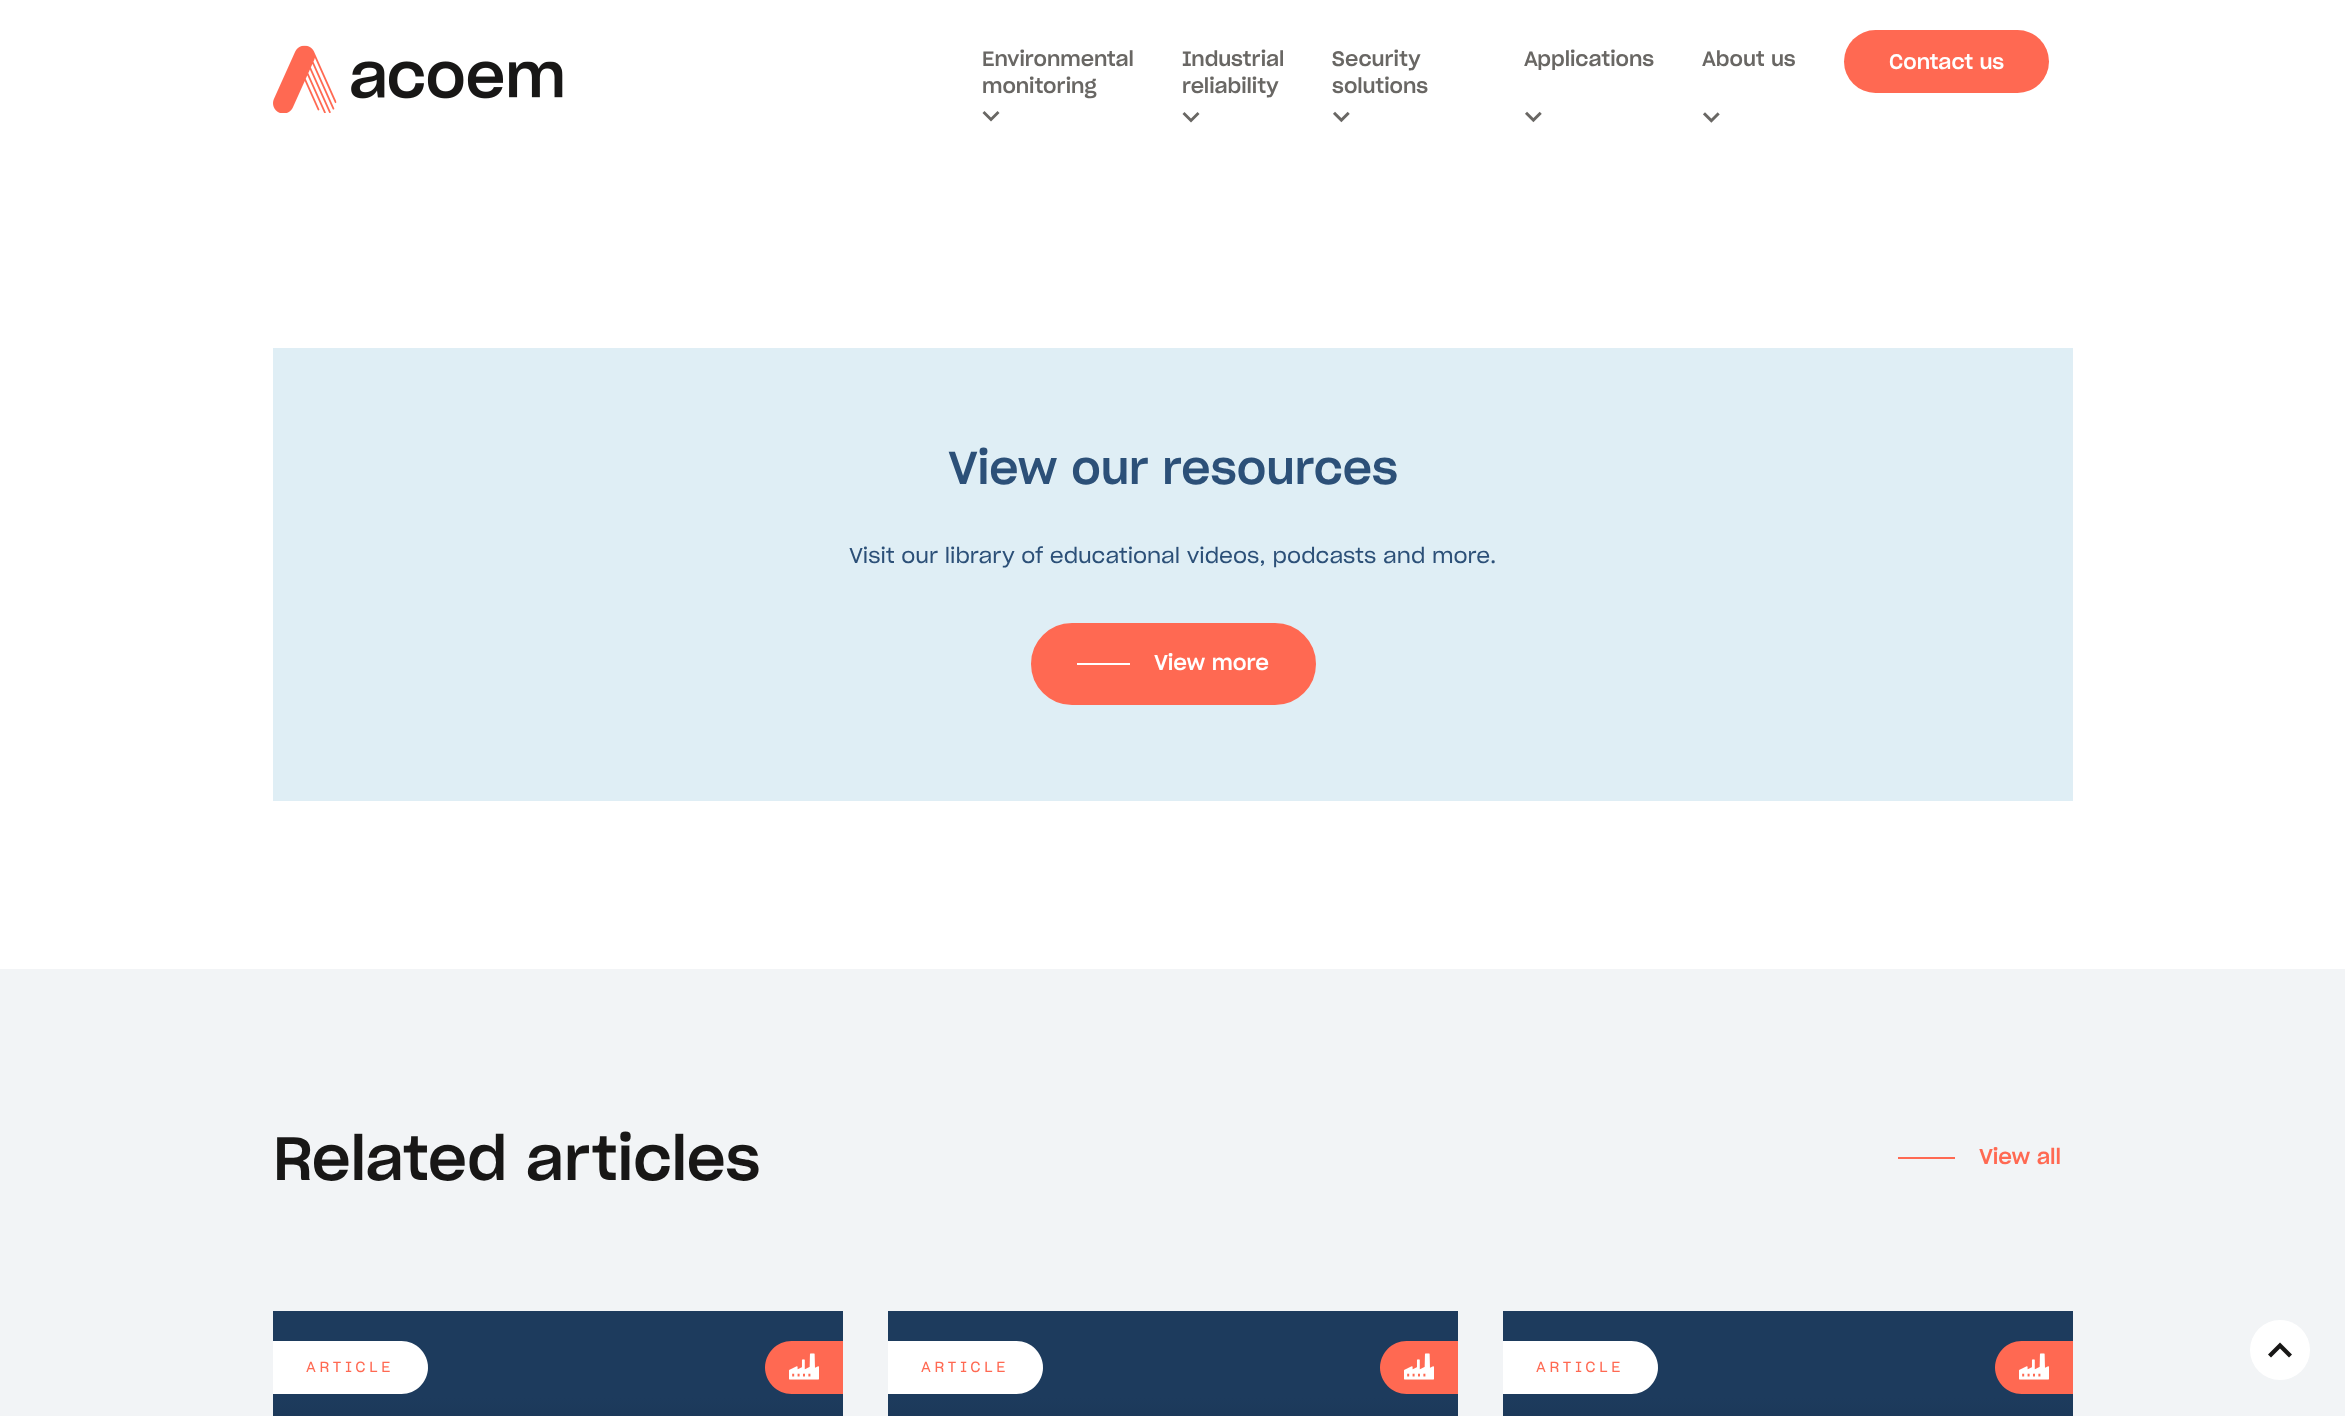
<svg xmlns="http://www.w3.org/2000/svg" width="2345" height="1416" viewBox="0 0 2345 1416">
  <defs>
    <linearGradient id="g1" gradientUnits="userSpaceOnUse" x1="558" y1="1398" x2="558" y2="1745"><stop offset="0" stop-color="#1d3b5d"/><stop offset="1" stop-color="#070f17"/></linearGradient>
    <linearGradient id="g2" gradientUnits="userSpaceOnUse" x1="1173" y1="1398" x2="1173" y2="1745"><stop offset="0" stop-color="#1d3b5d"/><stop offset="1" stop-color="#070f17"/></linearGradient>
    <linearGradient id="g3" gradientUnits="userSpaceOnUse" x1="1788" y1="1398" x2="1788" y2="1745"><stop offset="0" stop-color="#1d3b5d"/><stop offset="1" stop-color="#070f17"/></linearGradient>
  </defs>
  <rect width="100%" height="100%" fill="#fff"/>
  <image x="273" y="45" width="290" height="68" href="img/1.png"/>
  <path d="M984.5 111L982.5 113L991 121.5L999.5 113L997.5 111L991 117.5Z" fill="#696764"/>
  <path d="M1184.5 112L1182.5 114L1191 122.5L1199.5 114L1197.5 112L1191 118.5Z" fill="#696764"/>
  <image x="1333" y="111" width="17" height="12" href="img/2.png"/>
  <image x="1525" y="111" width="17" height="12" href="img/3.png"/>
  <image x="1703" y="112" width="17" height="11" href="img/4.png"/>
  <rect x="1844" y="30" width="205" height="63" rx="31.5" fill="#ff6952"/>
  <path d="M273 348h1800v453H273z" fill="#dfeef5"/>
  <rect x="1032" y="624" width="283" height="80" rx="40" fill="#ff6952" stroke="#ff6952" stroke-width="2"/>
  <path d="M1077 663h53v2H1077z" fill="#fff"/>
  <path d="M0 969h2345v447H0z" fill="#f2f4f6"/>
  <path d="M1898 1157h57v2H1898z" fill="#ff6952"/>
  <path d="M273 1311h570v87H273z" fill="#1d3b5d"/>
  <path d="M273 1398h570v18H273z" fill="url(#g1)"/>
  <path d="M273 1341H401.5C416 1341 428 1353 428 1367.5C428 1382 416 1394 401.5 1394H273Z" fill="#fff"/>
  <path d="M791.5 1341H843V1394H791.5C777 1394 765 1382 765 1367.5C765 1353 777 1341 791.5 1341Z" fill="#ff6952"/>
  <image x="789" y="1353" width="30" height="27" href="img/5.png"/>
  <path d="M888 1311h570v87H888z" fill="#1d3b5d"/>
  <path d="M888 1398h570v18H888z" fill="url(#g2)"/>
  <path d="M888 1341H1016.5C1031 1341 1043 1353 1043 1367.5C1043 1382 1031 1394 1016.5 1394H888Z" fill="#fff"/>
  <path d="M1406.5 1341H1458V1394H1406.5C1392 1394 1380 1382 1380 1367.5C1380 1353 1392 1341 1406.5 1341Z" fill="#ff6952"/>
  <image x="1404" y="1353" width="30" height="27" href="img/5.png"/>
  <path d="M1503 1311h570v87H1503z" fill="#1d3b5d"/>
  <path d="M1503 1398h570v18H1503z" fill="url(#g3)"/>
  <path d="M1503 1341H1631.5C1646 1341 1658 1353 1658 1367.5C1658 1382 1646 1394 1631.5 1394H1503Z" fill="#fff"/>
  <path d="M2021.5 1341H2073V1394H2021.5C2007 1394 1995 1382 1995 1367.5C1995 1353 2007 1341 2021.5 1341Z" fill="#ff6952"/>
  <image x="2019" y="1353" width="30" height="27" href="img/5.png"/>
  <circle cx="2280" cy="1350" r="30" fill="#fff"/>
  <path d="M2289 1357.5L2292 1354.5L2280 1342.5L2268 1354.5L2271 1357.5L2280 1348.5Z" fill="#181716"/>
  <g font-family="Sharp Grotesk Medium" font-size="20.5" font-weight="500" fill="#696764">
    <text x="982" y="66">Environmental</text>
    <text x="982" y="93">monitoring</text>
    <text x="1182" y="66">Industrial</text>
    <text x="1182" y="93">reliability</text>
    <text x="1332" y="66">Security</text>
    <text x="1332" y="93">solutions</text>
    <text x="1524" y="66">Applications</text>
    <text x="1702" y="66">About us</text>
  </g>
  <text x="1889" y="69" font-family="Sharp Grotesk Medium" font-size="20.5" font-weight="500" fill="#fff">Contact us</text>
  <text x="948" y="484" font-family="Sharp Grotesk Medium" font-size="45.1" font-weight="500" fill="#2c5078">View our resources</text>
  <text x="849" y="563" font-family="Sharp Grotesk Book" font-size="21.1" fill="#2c5078">Visit our library of educational videos, podcasts and more.</text>
  <text x="1154" y="670" font-family="Sharp Grotesk Medium" font-size="21.1" font-weight="500" fill="#fff">View more</text>
  <text x="273" y="1180" font-family="Sharp Grotesk Medium" font-size="60" font-weight="500" fill="#181716">Related articles</text>
  <text x="1979" y="1164" font-family="Sharp Grotesk Medium" font-size="21.1" font-weight="500" fill="#ff6952">View all</text>
  <g font-family="Sharp Grotesk Book" font-size="14.5" letter-spacing="3.75" fill="#ff6952">
    <text x="306" y="1372">ARTICLE</text>
    <text x="921" y="1372">ARTICLE</text>
    <text x="1536" y="1372">ARTICLE</text>
  </g>
</svg>
